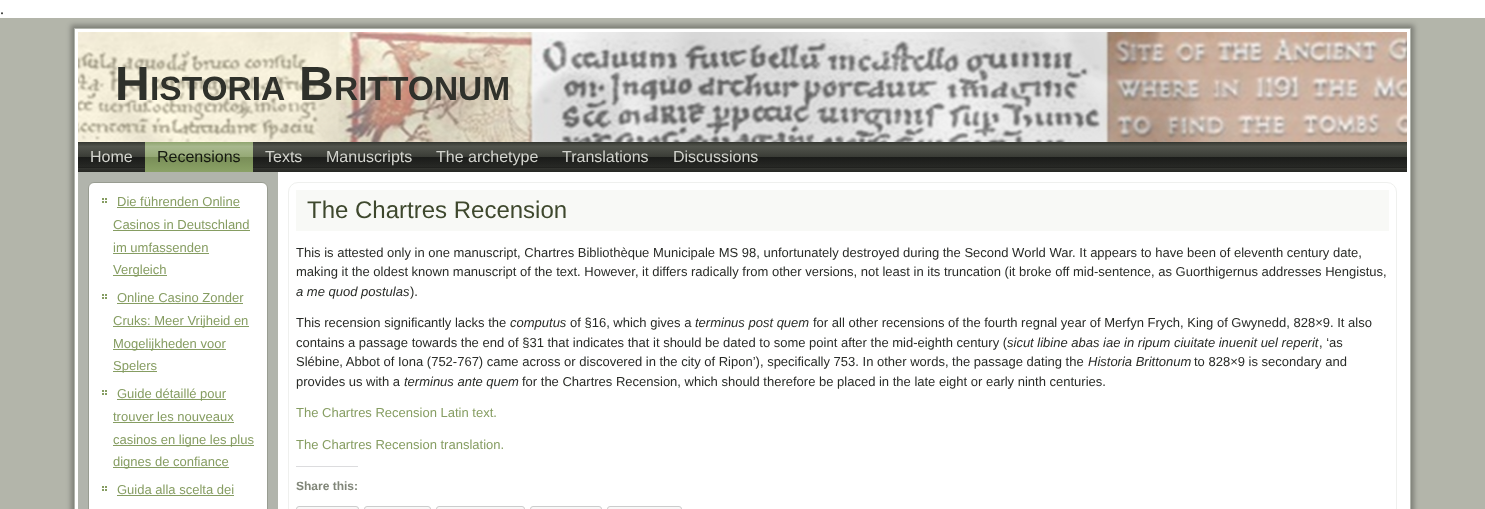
<svg xmlns="http://www.w3.org/2000/svg" width="1485" height="509" viewBox="0 0 1485 509">
  <defs>
    <linearGradient id="g1" gradientUnits="userSpaceOnUse" x1="199" y1="142" x2="199" y2="172"><stop offset="0" stop-color="#90a56f"/><stop offset="0.15" stop-color="#a8b88e"/><stop offset="0.5" stop-color="#95a975"/><stop offset="0.5" stop-color="#869d62"/><stop offset="0.5" stop-color="#798d58"/><stop offset="0.86" stop-color="#869d62"/><stop offset="1" stop-color="#8ba168"/></linearGradient>
  </defs>
  <rect width="100%" height="100%" fill="#fff"/>
  <path d="M0 18h1485v491H0z" fill="#b3b5aa"/>
  <path d="M71 25h1343v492H71z" fill="#0000004d" filter="blur(2.5px)"/>
  <path d="M74.5 28.5h1336v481H74.5z" fill="#fff" stroke="#b1b4ac"/>
  <image x="78" y="32" width="1329" height="110" href="img/1.png"/>
  <image x="78" y="142" width="1329" height="30" href="img/2.png"/>
  <path d="M145 142h108v30H145z" fill="url(#g1)"/>
  <path d="M78 172h200v337H78z" fill="#b1b4ac"/>
  <rect x="88.5" y="182.5" width="179" height="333" rx="5.5" fill="#fff" stroke="#989c91"/>
  <image x="102" y="198" width="5" height="5" href="img/3.png"/>
  <path d="M117 207h123v1H117z" fill="#869d62"/>
  <path d="M113 230h137v1H113z" fill="#869d62"/>
  <path d="M113 253h96v1H113z" fill="#869d62"/>
  <path d="M113 275h54v1H113z" fill="#869d62"/>
  <image x="102" y="294" width="5" height="5" href="img/3.png"/>
  <path d="M117 303h126v1H117z" fill="#869d62"/>
  <path d="M113 326h136v1H113z" fill="#869d62"/>
  <path d="M113 349h113v1H113z" fill="#869d62"/>
  <path d="M113 371h44v1H113z" fill="#869d62"/>
  <image x="102" y="390" width="5" height="5" href="img/3.png"/>
  <path d="M117 399h109v1H117z" fill="#869d62"/>
  <path d="M113 422h121v1H113z" fill="#869d62"/>
  <path d="M113 445h141v1H113z" fill="#869d62"/>
  <path d="M113 467h116v1H113z" fill="#869d62"/>
  <image x="102" y="486" width="5" height="5" href="img/3.png"/>
  <path d="M117 495h117v1H117z" fill="#869d62"/>
  <rect x="288.5" y="182.5" width="1108" height="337" rx="9.5" fill="none" stroke="#eff0ee"/>
  <path d="M296 190h1093v41H296z" fill="#f8f9f6"/>
  <path d="M296 466h62v1H296z" fill="#dcdcde"/>
  <rect x="296.5" y="506.5" width="62" height="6" rx="2.5" fill="#f8f8f8" stroke="#ccc"/>
  <rect x="364.5" y="506.5" width="66" height="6" rx="2.5" fill="#f8f8f8" stroke="#ccc"/>
  <rect x="436.5" y="506.5" width="88" height="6" rx="2.5" fill="#f8f8f8" stroke="#ccc"/>
  <rect x="530.5" y="506.5" width="71" height="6" rx="2.5" fill="#f8f8f8" stroke="#ccc"/>
  <rect x="607.5" y="506.5" width="74" height="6" rx="2.5" fill="#f8f8f8" stroke="#ccc"/>
  <text x="0" y="14" font-family="Liberation Serif" font-size="16" fill="#292b27">.</text>
  <text x="115" y="100" font-family="Liberation Sans" font-size="48" font-weight="bold" fill="#2f312b">H</text>
  <text x="150" y="100" font-family="Liberation Sans" font-size="33.5" font-weight="bold" fill="#2f312b">ISTORIA</text>
  <text x="299" y="100" font-family="Liberation Sans" font-size="48" font-weight="bold" fill="#2f312b">B</text>
  <text x="334" y="100" font-family="Liberation Sans" font-size="33.5" font-weight="bold" fill="#2f312b">RITTONUM</text>
  <text x="90" y="162" font-family="Liberation Sans" font-size="16" fill="#d3d4ce">Home</text>
  <text x="157" y="162" font-family="Liberation Sans" font-size="16" fill="#151910">Recensions</text>
  <g font-family="Liberation Sans" font-size="16" fill="#d3d4ce">
    <text x="265" y="162">Texts</text>
    <text x="326" y="162">Manuscripts</text>
    <text x="436" y="162">The archetype</text>
    <text x="562" y="162">Translations</text>
    <text x="673" y="162">Discussions</text>
  </g>
  <g font-family="Liberation Sans" font-size="13" fill="#869d62">
    <text x="117" y="206">Die führenden Online</text>
    <text x="113" y="229">Casinos in Deutschland</text>
    <text x="113" y="252">im umfassenden</text>
    <text x="113" y="274">Vergleich</text>
    <text x="117" y="302">Online Casino Zonder</text>
    <text x="113" y="325">Cruks: Meer Vrijheid en</text>
    <text x="113" y="348">Mogelijkheden voor</text>
    <text x="113" y="370">Spelers</text>
    <text x="117" y="398">Guide détaillé pour</text>
    <text x="113" y="421">trouver les nouveaux</text>
    <text x="113" y="444">casinos en ligne les plus</text>
    <text x="113" y="466">dignes de confiance</text>
    <text x="117" y="494">Guida alla scelta dei</text>
  </g>
  <text x="307" y="218" font-family="Liberation Sans" font-size="24" fill="#3e482d">The Chartres Recension</text>
  <g font-family="Liberation Sans" font-size="13" fill="#292b27">
    <text x="296" y="257">This is attested only in one manuscript, Chartres Bibliothèque Municipale MS 98, unfortunately destroyed during the Second World War. It appears to have been of eleventh century date,</text>
    <text x="296" y="276">making it the oldest known manuscript of the text. However, it differs radically from other versions, not least in its truncation (it broke off mid-sentence, as Guorthigernus addresses Hengistus,</text>
  </g>
  <text x="296" y="296" font-family="Liberation Sans" font-size="13" font-style="italic" fill="#292b27">a me quod postulas</text>
  <g font-family="Liberation Sans" font-size="13" fill="#292b27">
    <text x="410" y="296">).</text>
    <text x="296" y="327">This recension significantly lacks the</text>
  </g>
  <text x="510" y="327" font-family="Liberation Sans" font-size="13" font-style="italic" fill="#292b27">computus</text>
  <text x="570" y="327" font-family="Liberation Sans" font-size="13" fill="#292b27">of §16, which gives a</text>
  <text x="695" y="327" font-family="Liberation Sans" font-size="13" font-style="italic" fill="#292b27">terminus post quem</text>
  <g font-family="Liberation Sans" font-size="13" fill="#292b27">
    <text x="813" y="327">for all other recensions of the fourth regnal year of Merfyn Frych, King of Gwynedd, 828×9. It also</text>
    <text x="296" y="347">contains a passage towards the end of §31 that indicates that it should be dated to some point after the mid-eighth century (</text>
  </g>
  <text x="1007" y="347" font-family="Liberation Sans" font-size="13" font-style="italic" fill="#292b27">sicut libine abas iae in ripum ciuitate inuenit uel reperit</text>
  <g font-family="Liberation Sans" font-size="13" fill="#292b27">
    <text x="1319" y="347">, ‘as</text>
    <text x="296" y="366">Slébine, Abbot of Iona (752-767) came across or discovered in the city of Ripon’), specifically 753. In other words, the passage dating the</text>
  </g>
  <text x="1088" y="366" font-family="Liberation Sans" font-size="13" font-style="italic" fill="#292b27">Historia Brittonum</text>
  <g font-family="Liberation Sans" font-size="13" fill="#292b27">
    <text x="1194" y="366">to 828×9 is secondary and</text>
    <text x="296" y="386">provides us with a</text>
  </g>
  <text x="404" y="386" font-family="Liberation Sans" font-size="13" font-style="italic" fill="#292b27">terminus ante quem</text>
  <text x="522" y="386" font-family="Liberation Sans" font-size="13" fill="#292b27">for the Chartres Recension, which should therefore be placed in the late eight or early ninth centuries.</text>
  <g font-family="Liberation Sans" font-size="13" fill="#869d62">
    <text x="296" y="417">The Chartres Recension Latin text.</text>
    <text x="296" y="449">The Chartres Recension translation.</text>
  </g>
  <text x="296" y="490" font-family="Liberation Sans" font-size="12" font-weight="bold" fill="#818679">Share this:</text>
</svg>
